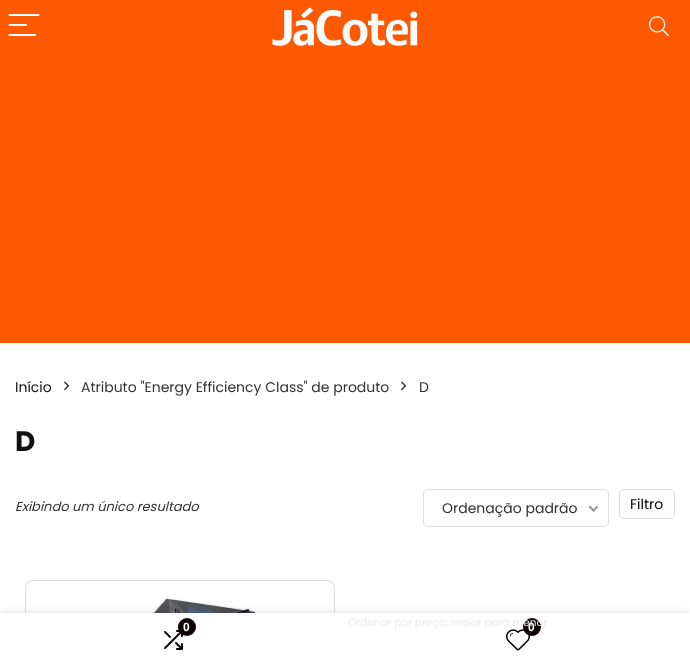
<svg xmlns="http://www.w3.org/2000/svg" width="690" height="668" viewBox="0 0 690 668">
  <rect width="100%" height="100%" fill="#fff"/>
  <image x="64" y="381" width="6" height="10" href="img/1.png"/>
  <image x="401" y="381" width="6" height="10" href="img/1.png"/>
  <rect x="423.5" y="489.5" width="185" height="37" rx="4.5" fill="none" stroke="#e1e1e1"/>
  <path d="M597 505.5L598.5 507L593.5 512L592 510.5Z" fill="#999"/>
  <path d="M590 505.5L595 510.5L593.5 512L588.5 507Z" fill="#999"/>
  <rect x="619.5" y="489.5" width="55" height="29" rx="4.5" fill="none" stroke="#dce0e0"/>
  <rect x="25.5" y="580.5" width="309" height="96" rx="7.5" fill="none" stroke="#ddd"/>
  <image x="105" y="597" width="150" height="16" href="img/2.png"/>
  <path d="M0 0h690v343H0z" fill="#ff5900"/>
  <path d="M9.5 15H38.5M9.5 25H26M9.5 35H35" fill="none" stroke="#fff" stroke-width="2.2" stroke-linecap="round"/>
  <image x="272" y="7" width="146" height="39" href="img/3.png"/>
  <image x="649" y="16" width="20" height="21" href="img/4.png"/>
  <path d="M0 613h690v55H0z" fill="#0000001f" filter="blur(4.5px)"/>
  <path d="M0 613h690v55H0z" fill="#fff"/>
  <image x="164" y="630" width="19" height="20" href="img/5.png"/>
  <circle cx="187" cy="627" r="9" fill="#0a0000"/>
  <image x="506" y="629" width="24" height="22" href="img/6.png"/>
  <circle cx="532" cy="627" r="9" fill="#0a0000"/>
  <text x="15" y="392" font-family="Poppins" font-size="14" fill="#111">Início</text>
  <g font-family="Poppins" font-size="14" fill="#333">
    <text x="81" y="392">Atributo "Energy Efficiency Class" de produto</text>
    <text x="419" y="392">D</text>
  </g>
  <text x="15" y="451" font-family="Poppins" font-size="28" font-weight="bold" fill="#111">D</text>
  <text x="15" y="511" font-family="Poppins" font-size="13" font-style="italic" fill="#333">Exibindo um único resultado</text>
  <text x="442" y="513" font-family="Poppins" font-size="14" fill="#333">Ordenação padrão</text>
  <text x="630" y="509" font-family="Poppins" font-size="14" fill="#0a0000">Filtro</text>
  <g font-family="Liberation Sans" font-size="12" font-weight="bold" fill="#fff">
    <text x="183" y="631">0</text>
    <text x="528" y="631">0</text>
  </g>
  <text x="348" y="626" font-family="Poppins" font-size="10.5" fill="#ecebeb">Ordenar por preço: maior para menor</text>
</svg>
